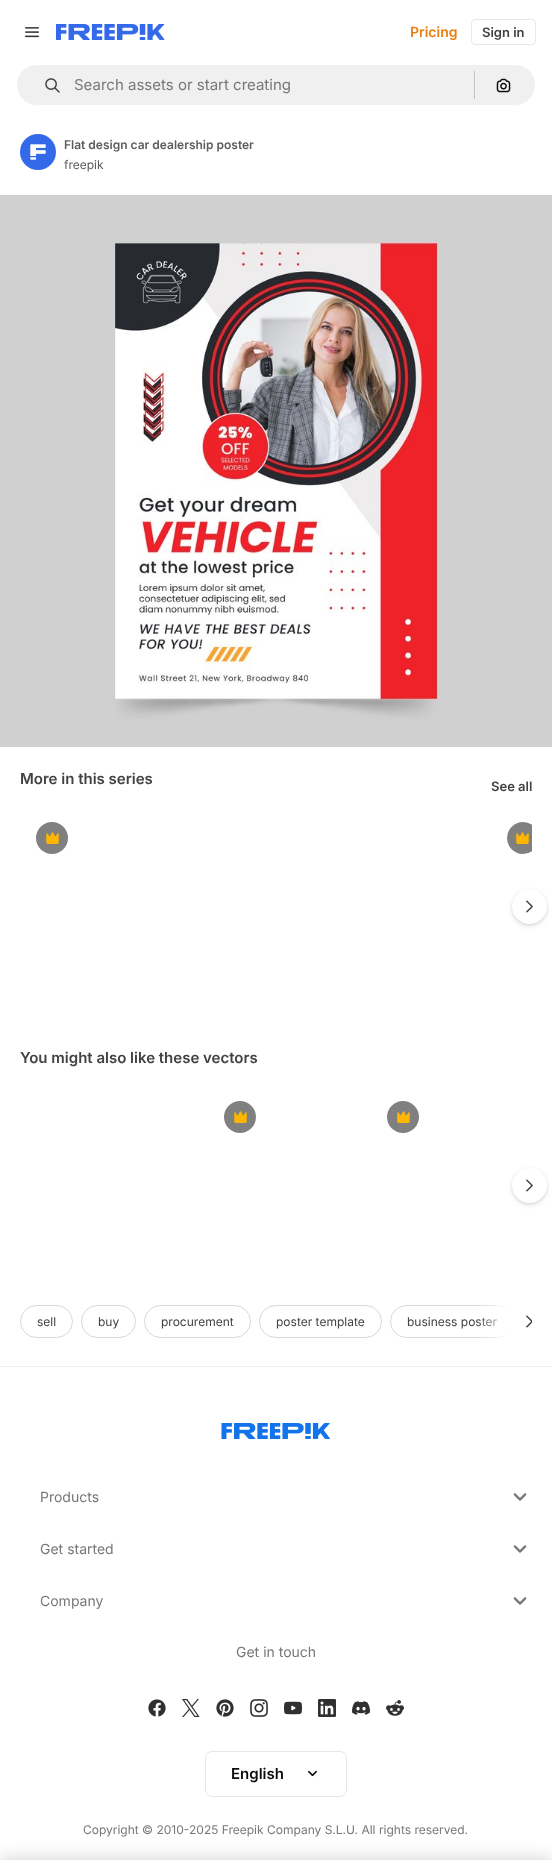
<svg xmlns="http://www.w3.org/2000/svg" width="552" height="1860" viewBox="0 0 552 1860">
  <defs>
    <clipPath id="clip1"><path d="M20 806h512v200H20z"/></clipPath>
    <linearGradient id="g1" gradientUnits="userSpaceOnUse" x1="512" y1="1322" x2="477" y2="1322"><stop offset="0" stop-color="#fff"/><stop offset="1" stop-color="#fff" stop-opacity="0"/></linearGradient>
  </defs>
  <rect width="100%" height="100%" fill="#fff"/>
  <image x="25" y="27" width="14" height="11" href="img/1.png"/>
  <image x="56" y="24" width="109" height="16" href="img/2.png"/>
  <rect x="471.5" y="19.5" width="64" height="25" rx="3.5" fill="none" stroke="#e7e7e7"/>
  <rect x="16.5" y="64.5" width="519" height="41" rx="20.5" fill="#f0f0f0" stroke="#fff"/>
  <image x="45" y="78" width="15" height="15" href="img/3.png"/>
  <path d="M474 71h1v28H474z" fill="#c3c3c3"/>
  <image x="496" y="78" width="15" height="15" href="img/4.png"/>
  <image x="20" y="134" width="36" height="36" href="img/5.png"/>
  <image x="0" y="195" width="552" height="552" href="img/6.png"/>
  <circle cx="52" cy="838" r="16" fill="#808080"/>
  <image x="46" y="832" width="13" height="12" href="img/7.png"/>
  <g clip-path="url(#clip1)">
    <circle cx="523" cy="838" r="16" fill="#808080"/>
  </g>
  <image x="516" y="832" width="13" height="12" href="img/7.png"/>
  <rect x="512" y="891" width="35" height="35" rx="17.5" fill="#37495726" filter="blur(2.5px)"/>
  <rect x="512" y="890" width="35" height="35" rx="17.5" fill="#3749571a" filter="blur(1px)"/>
  <circle cx="529.5" cy="906.5" r="17.5" fill="#fff"/>
  <image x="526" y="900" width="7" height="13" href="img/8.png"/>
  <circle cx="240" cy="1117" r="16" fill="#808080"/>
  <image x="234" y="1111" width="13" height="12" href="img/7.png"/>
  <circle cx="403" cy="1117" r="16" fill="#808080"/>
  <image x="397" y="1111" width="13" height="12" href="img/7.png"/>
  <rect x="512" y="1170" width="35" height="35" rx="17.5" fill="#37495726" filter="blur(2.5px)"/>
  <rect x="512" y="1169" width="35" height="35" rx="17.5" fill="#3749571a" filter="blur(1px)"/>
  <circle cx="529.5" cy="1185.5" r="17.5" fill="#fff"/>
  <image x="526" y="1179" width="7" height="13" href="img/8.png"/>
  <rect x="20.5" y="1305.5" width="52" height="32" rx="16" fill="none" stroke="#d8d8d8"/>
  <rect x="81.5" y="1305.5" width="54" height="32" rx="16" fill="none" stroke="#d8d8d8"/>
  <rect x="144.5" y="1305.5" width="106" height="32" rx="16" fill="none" stroke="#d8d8d8"/>
  <rect x="259.5" y="1305.5" width="122" height="32" rx="16" fill="none" stroke="#d8d8d8"/>
  <rect x="390.5" y="1305.5" width="123" height="32" rx="16" fill="none" stroke="#d8d8d8"/>
  <path d="M512 1314h2v15H512z" fill="#fff"/>
  <image x="526" y="1315" width="6" height="13" href="img/9.png"/>
  <path d="M0 1366h552v1H0z" fill="#f0f0f0"/>
  <image x="221" y="1423" width="109" height="16" href="img/10.png"/>
  <image x="513" y="1493" width="14" height="8" href="img/11.png"/>
  <image x="513" y="1545" width="14" height="8" href="img/11.png"/>
  <image x="513" y="1597" width="14" height="8" href="img/11.png"/>
  <image x="148" y="1699" width="18" height="18" href="img/12.png"/>
  <image x="182" y="1699" width="18" height="18" href="img/13.png"/>
  <image x="216" y="1699" width="18" height="18" href="img/14.png"/>
  <image x="250" y="1699" width="18" height="18" href="img/15.png"/>
  <image x="284" y="1701" width="18" height="14" href="img/16.png"/>
  <image x="318" y="1699" width="18" height="18" href="img/17.png"/>
  <image x="352" y="1701" width="18" height="14" href="img/18.png"/>
  <image x="386" y="1700" width="18" height="16" href="img/19.png"/>
  <rect x="205.5" y="1751.5" width="141" height="45" rx="6.5" fill="none" stroke="#e6e6e6"/>
  <image x="308" y="1770" width="9" height="7" href="img/20.png"/>
  <path d="M0 1860h552v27H0z" fill="#00000033" filter="blur(9px)"/>
  <text x="410" y="37" font-family="Inter" font-size="14" font-weight="600" fill="#ea7e11">Pricing</text>
  <text x="482" y="37" font-family="Inter" font-size="13" font-weight="600" fill="#424242">Sign in</text>
  <text x="74" y="90" font-family="Inter" font-size="15" fill="#777">Search assets or start creating</text>
  <text x="64" y="149" font-family="Inter" font-size="12" font-weight="600" fill="#5c5c5c">Flat design car dealership poster</text>
  <text x="64" y="169" font-family="Inter" font-size="12" fill="#5c5c5c">freepik</text>
  <text x="20" y="784" font-family="Inter" font-size="15" font-weight="600" fill="#424242">More in this series</text>
  <text x="491" y="791" font-family="Inter" font-size="13" font-weight="600" fill="#424242">See all</text>
  <text x="20" y="1063" font-family="Inter" font-size="15" font-weight="600" fill="#424242">You might also like these vectors</text>
  <g font-family="Inter" font-size="12" fill="#424242">
    <text x="37" y="1326">sell</text>
    <text x="98" y="1326">buy</text>
    <text x="161" y="1326">procurement</text>
    <text x="276" y="1326">poster template</text>
    <text x="407" y="1326">business poster</text>
  </g>
  <path d="M478 1305h34v33H478z" fill="url(#g1)"/>
  <g font-family="Inter" font-size="14" fill="#777">
    <text x="40" y="1502">Products</text>
    <text x="40" y="1554">Get started</text>
    <text x="40" y="1606">Company</text>
    <text x="236" y="1657">Get in touch</text>
  </g>
  <text x="231" y="1779" font-family="Inter" font-size="15" font-weight="600" fill="#0d0d0d">English</text>
  <g font-family="Inter" font-size="12" fill="#777">
    <text x="83" y="1834">Copyright © 2010-</text>
    <text x="189" y="1834">2025 Freepik Company S.L.U. All rights reserved.</text>
  </g>
</svg>
